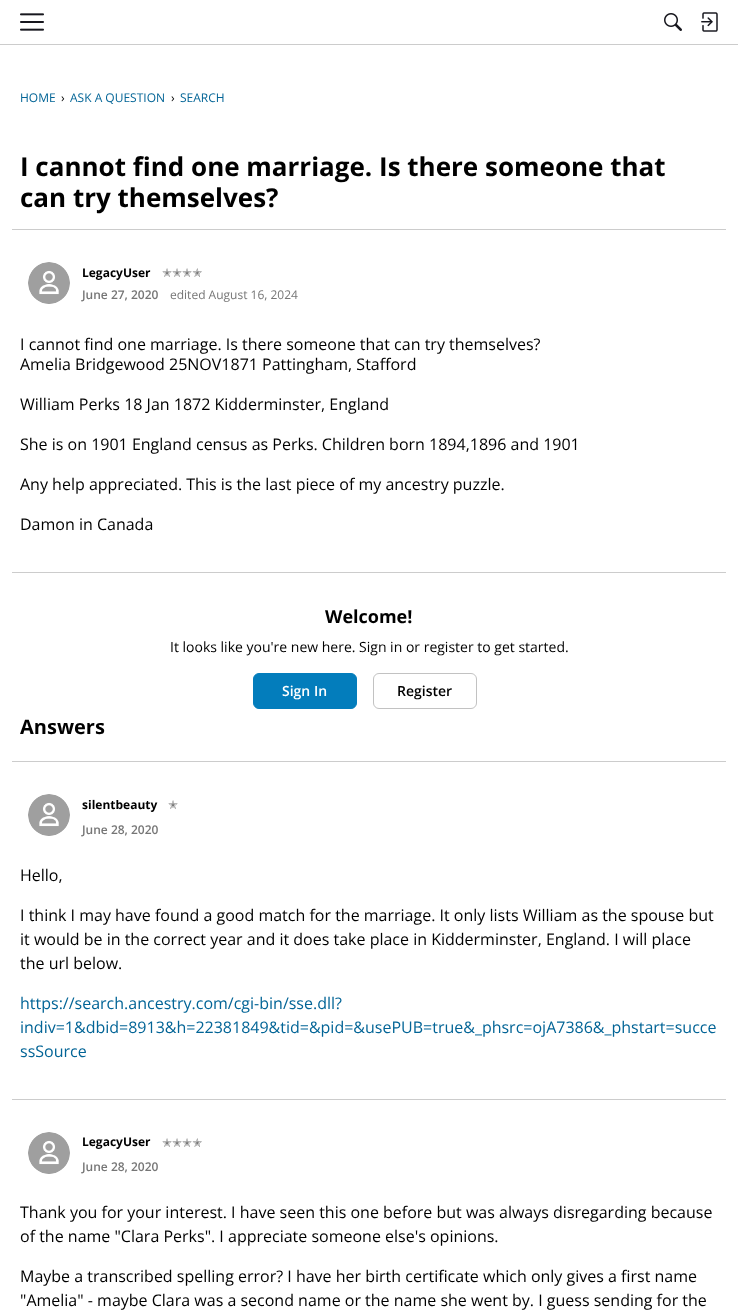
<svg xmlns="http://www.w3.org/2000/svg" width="738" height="1314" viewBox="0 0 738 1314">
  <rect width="100%" height="100%" fill="#fff"/>
  <path d="M0 44h738v1H0z" fill="#ccc"/>
  <image x="20" y="13" width="24" height="18" href="img/1.png"/>
  <image x="664" y="13" width="18" height="18" href="img/2.png"/>
  <image x="701" y="12" width="17" height="20" href="img/3.png"/>
  <path d="M12 229h714v1H12z" fill="#ccc"/>
  <image x="28" y="262" width="42" height="42" href="img/4.png"/>
  <path d="M12 572h714v1H12z" fill="#ccc"/>
  <rect x="253.5" y="673.5" width="103" height="35" rx="5.5" fill="#037dbc" stroke="#037dbc"/>
  <rect x="373.5" y="673.5" width="103" height="35" rx="5.5" fill="none" stroke="#c2c2c2"/>
  <path d="M12 761h714v1H12z" fill="#ccc"/>
  <image x="28" y="794" width="42" height="42" href="img/5.png"/>
  <path d="M12 1099h714v1H12z" fill="#ccc"/>
  <image x="28" y="1132" width="42" height="42" href="img/6.png"/>
  <text x="20" y="102" font-family="Open Sans" font-size="12" fill="#026496">HOME</text>
  <text x="61" y="102" font-family="Open Sans" font-size="12" fill="#000">›</text>
  <text x="70" y="102" font-family="Open Sans" font-size="12" fill="#026496">ASK A QUESTION</text>
  <text x="171" y="102" font-family="Open Sans" font-size="12" fill="#000">›</text>
  <text x="180" y="102" font-family="Open Sans" font-size="12" fill="#026496">SEARCH</text>
  <g font-family="Open Sans" font-size="26" font-weight="bold" fill="#000">
    <text x="20" y="176">I cannot find one marriage. Is there someone that</text>
    <text x="20" y="207">can try themselves?</text>
  </g>
  <text x="82" y="277" font-family="Open Sans" font-size="12" font-weight="bold" fill="#000">LegacyUser</text>
  <text x="162" y="277" font-family="DejaVu Sans" font-size="12" fill="#767676">✭✭✭✭</text>
  <text x="82" y="299" font-family="Open Sans" font-size="12" font-weight="600" fill="#767676">June 27, 2020</text>
  <text x="170" y="299" font-family="Open Sans" font-size="12" fill="#767676">edited August 16, 2024</text>
  <g font-family="Open Sans" font-size="16" fill="#000">
    <text x="20" y="350">I cannot find one marriage. Is there someone that can try themselves?</text>
    <text x="20" y="370">Amelia Bridgewood 25NOV1871 Pattingham, Stafford</text>
    <text x="20" y="410">William Perks 18 Jan 1872 Kidderminster, England</text>
    <text x="20" y="450">She is on 1901 England census as Perks. Children born 1894,1896 and 1901</text>
    <text x="20" y="490">Any help appreciated. This is the last piece of my ancestry puzzle.</text>
    <text x="20" y="530">Damon in Canada</text>
  </g>
  <text x="325" y="623" font-family="Open Sans" font-size="18" font-weight="bold" fill="#000">Welcome!</text>
  <text x="170" y="652" font-family="Open Sans" font-size="14" fill="#000">It looks like you're new here. Sign in or register to get started.</text>
  <text x="282" y="696" font-family="Open Sans" font-size="14" font-weight="600" fill="#fff">Sign In</text>
  <text x="397" y="696" font-family="Open Sans" font-size="14" font-weight="600" fill="#000">Register</text>
  <text x="20" y="734" font-family="Open Sans" font-size="20" font-weight="bold" fill="#000">Answers</text>
  <text x="82" y="809" font-family="Open Sans" font-size="12" font-weight="bold" fill="#000">silentbeauty</text>
  <text x="168" y="809" font-family="DejaVu Sans" font-size="12" fill="#767676">✭</text>
  <text x="82" y="834" font-family="Open Sans" font-size="12" font-weight="600" fill="#767676">June 28, 2020</text>
  <g font-family="Open Sans" font-size="16" fill="#000">
    <text x="20" y="881">Hello,</text>
    <text x="20" y="921">I think I may have found a good match for the marriage. It only lists William as the spouse but</text>
    <text x="20" y="945">it would be in the correct year and it does take place in Kidderminster, England. I will place</text>
    <text x="20" y="969">the url below.</text>
  </g>
  <g font-family="Open Sans" font-size="16" fill="#026496">
    <text x="20" y="1009">https://search.ancestry.com/cgi-bin/sse.dll?</text>
    <text x="20" y="1033">indiv=1&amp;dbid=8913&amp;h=22381849&amp;tid=&amp;pid=&amp;usePUB=true&amp;_phsrc=ojA7386&amp;_phstart=succe</text>
    <text x="20" y="1057">ssSource</text>
  </g>
  <text x="82" y="1146" font-family="Open Sans" font-size="12" font-weight="bold" fill="#000">LegacyUser</text>
  <text x="162" y="1147" font-family="DejaVu Sans" font-size="12" fill="#767676">✭✭✭✭</text>
  <text x="82" y="1171" font-family="Open Sans" font-size="12" font-weight="600" fill="#767676">June 28, 2020</text>
  <g font-family="Open Sans" font-size="16" fill="#000">
    <text x="20" y="1218">Thank you for your interest. I have seen this one before but was always disregarding because</text>
    <text x="20" y="1242">of the name "Clara Perks". I appreciate someone else's opinions.</text>
    <text x="20" y="1282">Maybe a transcribed spelling error? I have her birth certificate which only gives a first name</text>
    <text x="20" y="1306">"Amelia" - maybe Clara was a second name or the name she went by. I guess sending for the</text>
  </g>
</svg>
